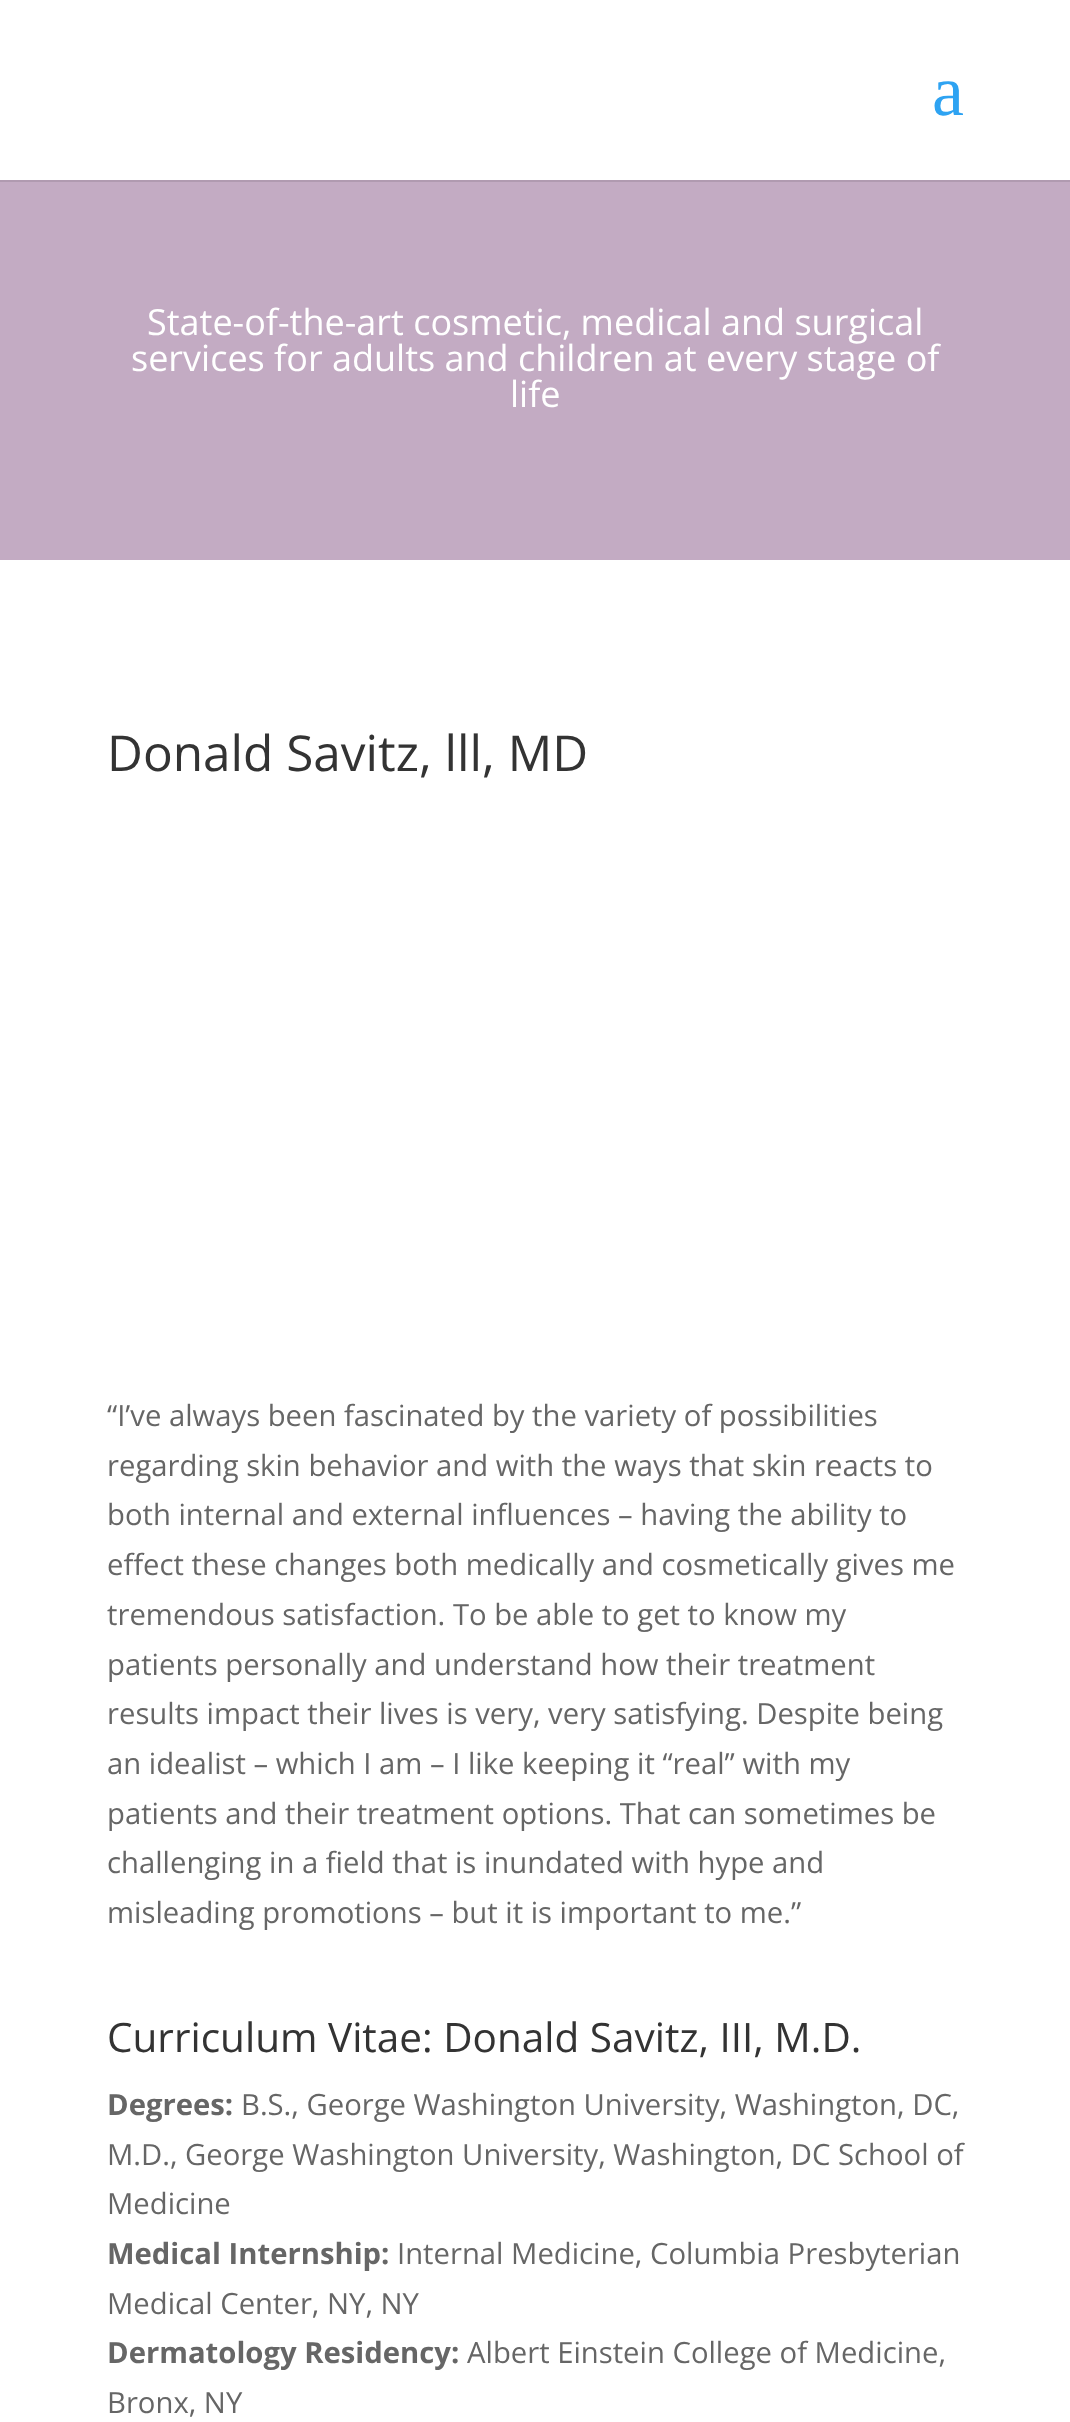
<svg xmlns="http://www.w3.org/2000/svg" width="1070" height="2422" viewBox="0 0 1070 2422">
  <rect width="100%" height="100%" fill="#fff"/>
  <path d="M0 180h1070v2H0z" fill="#b09ab0"/>
  <path d="M0 182h1070v378H0z" fill="#c3abc3"/>
  <text x="932" y="115" font-family="Liberation Serif" font-size="72" fill="#2ea3f2">a</text>
  <g font-family="Open Sans" font-size="36" fill="#fff">
    <text x="147" y="335">State-of-the-art cosmetic, medical and surgical</text>
    <text x="131" y="371">services for adults and children at every stage of</text>
    <text x="510" y="407">life</text>
  </g>
  <text x="107" y="771" font-family="Open Sans" font-size="49.5" fill="#333">Donald Savitz, lll, MD</text>
  <g font-family="Open Sans" font-size="29.25" fill="#666">
    <text x="107" y="1426">“I’ve always been fascinated by the variety of possibilities</text>
    <text x="107" y="1476">regarding skin behavior and with the ways that skin reacts to</text>
    <text x="107" y="1525">both internal and external influences – having the ability to</text>
    <text x="107" y="1575">effect these changes both medically and cosmetically gives me</text>
    <text x="107" y="1625">tremendous satisfaction. To be able to get to know my</text>
    <text x="107" y="1675">patients personally and understand how their treatment</text>
    <text x="107" y="1724">results impact their lives is very, very satisfying. Despite being</text>
    <text x="107" y="1774">an idealist – which I am – I like keeping it “real” with my</text>
    <text x="107" y="1824">patients and their treatment options. That can sometimes be</text>
    <text x="107" y="1873">challenging in a field that is inundated with hype and</text>
    <text x="107" y="1923">misleading promotions – but it is important to me.”</text>
  </g>
  <text x="107" y="2052" font-family="Open Sans" font-size="40.5" fill="#333">Curriculum Vitae: Donald Savitz, III, M.D.</text>
  <text x="107" y="2115" font-family="Open Sans" font-size="29.25" font-weight="bold" fill="#666">Degrees:</text>
  <g font-family="Open Sans" font-size="29.25" fill="#666">
    <text x="241" y="2115">B.S., George Washington University, Washington, DC,</text>
    <text x="107" y="2165">M.D., George Washington University, Washington, DC School of</text>
    <text x="107" y="2214">Medicine</text>
  </g>
  <text x="107" y="2264" font-family="Open Sans" font-size="29.25" font-weight="bold" fill="#666">Medical Internship:</text>
  <g font-family="Open Sans" font-size="29.25" fill="#666">
    <text x="397" y="2264">Internal Medicine, Columbia Presbyterian</text>
    <text x="107" y="2314">Medical Center, NY, NY</text>
  </g>
  <text x="107" y="2363" font-family="Open Sans" font-size="29.25" font-weight="bold" fill="#666">Dermatology Residency:</text>
  <g font-family="Open Sans" font-size="29.25" fill="#666">
    <text x="467" y="2363">Albert Einstein College of Medicine,</text>
    <text x="107" y="2413">Bronx, NY</text>
  </g>
</svg>
